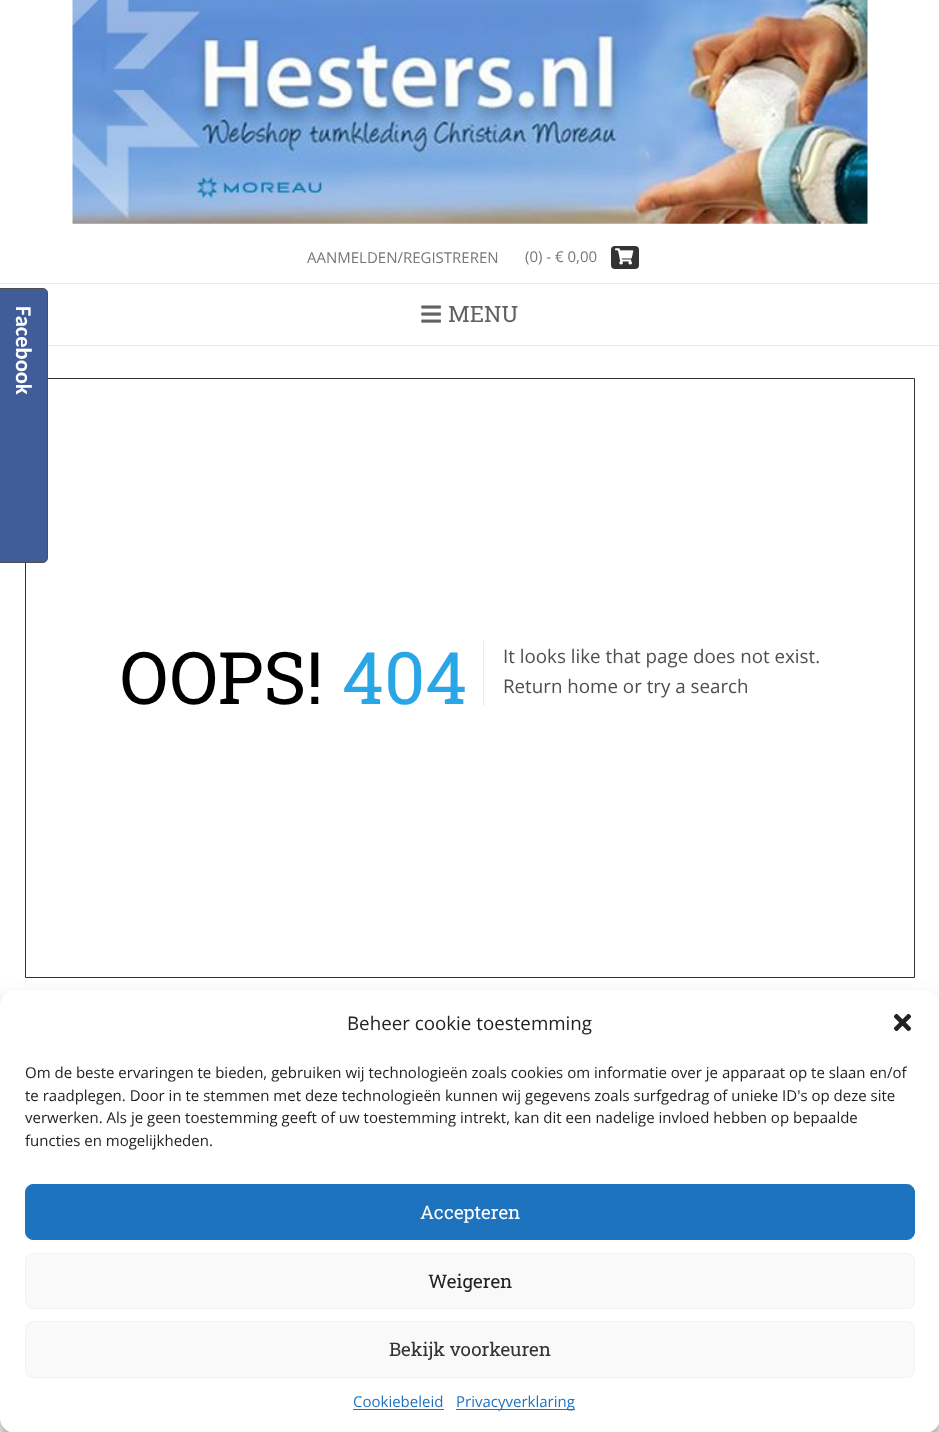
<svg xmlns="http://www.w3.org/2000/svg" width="939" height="1432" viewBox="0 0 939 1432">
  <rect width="100%" height="100%" fill="#fff"/>
  <path d="M25.5 378.5h889v599H25.5z" fill="none" stroke="#333"/>
  <path d="M-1.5 288.5H43C45.5 288.5 47.5 290.5 47.5 293V558C47.5 560.5 45.5 562.5 43 562.5H-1.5Z" fill="#405d9a" stroke="#4f4f4f"/>
  <path d="M48 345h891v1H48z" fill="#ebebeb"/>
  <image x="72" y="0" width="796" height="224" href="img/1.png"/>
  <rect x="611" y="246" width="28" height="23" rx="4" fill="#333"/>
  <image x="615" y="248" width="19" height="17" href="img/2.png"/>
  <path d="M0 283h939v1H0z" fill="#ebebeb"/>
  <image x="421" y="305" width="20" height="18" href="img/3.png"/>
  <path d="M483 641V706H484V641H819Z" fill="#ebebeb"/>
  <rect y="998" width="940" height="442" rx="15" fill="#0000003b" filter="blur(4px)"/>
  <rect y="1003" width="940" height="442" rx="15" fill="#00000030" filter="blur(12.5px)"/>
  <rect y="990" width="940" height="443" rx="15" fill="#fff"/>
  <image x="893" y="1013" width="19" height="19" href="img/4.png"/>
  <rect x="25.5" y="1184.5" width="889" height="55" rx="7.5" fill="#1e73be" stroke="#1e73be"/>
  <rect x="25.5" y="1253.5" width="889" height="55" rx="7.5" fill="#f9f9f9" stroke="#f2f2f2"/>
  <rect x="25.5" y="1321.5" width="889" height="56" rx="7.5" fill="#f9f9f9" stroke="#f2f2f2"/>
  <path d="M353 1409h91v1H353z" fill="#1e73be"/>
  <path d="M456 1409h119v1H456z" fill="#1e73be"/>
  <text x="16" y="306" transform="rotate(90 16 306)" font-family="Carlito" font-size="22.5" font-weight="bold" fill="#fff">Facebook</text>
  <g font-family="Open Sans" font-size="15" fill="#777">
    <text x="307" y="263">AANMELDEN/REGISTREREN</text>
    <text x="525" y="262">(0) - € 0,00</text>
  </g>
  <text x="448" y="322" font-family="Roboto Slab" font-size="22.5" fill="#626262">MENU</text>
  <text x="120" y="704" font-family="Roboto Slab" font-size="72.5" fill="#000">OOPS!</text>
  <text x="342" y="704" font-family="Roboto Slab" font-size="72.5" fill="#29a6e5">404</text>
  <g font-family="Open Sans" font-size="18.75" fill="#4f4f4f">
    <text x="503" y="663">It looks like that page does not exist.</text>
    <text x="503" y="693">Return home or try a search</text>
  </g>
  <text x="347" y="1030" font-family="Open Sans" font-size="18.75" fill="#222">Beheer cookie toestemming</text>
  <g font-family="Open Sans" font-size="15" fill="#222">
    <text x="25" y="1078">Om de beste ervaringen te bieden, gebruiken wij technologieën zoals cookies om informatie over je apparaat op te slaan en/of</text>
    <text x="25" y="1101">te raadplegen. Door in te stemmen met deze technologieën kunnen wij gegevens zoals surfgedrag of unieke ID's op deze site</text>
    <text x="25" y="1123">verwerken. Als je geen toestemming geeft of uw toestemming intrekt, kan dit een nadelige invloed hebben op bepaalde</text>
    <text x="25" y="1146">functies en mogelijkheden.</text>
  </g>
  <text x="420" y="1219" font-family="Roboto Slab" font-size="18.75" fill="#fff">Accepteren</text>
  <text x="428" y="1288" font-family="Roboto Slab" font-size="18.75" fill="#222">Weigeren</text>
  <text x="389" y="1356" font-family="Roboto Slab" font-size="18.75" fill="#333">Bekijk voorkeuren</text>
  <g font-family="Open Sans" font-size="15" fill="#1e73be">
    <text x="353" y="1407">Cookiebeleid</text>
    <text x="456" y="1407">Privacyverklaring</text>
  </g>
</svg>
